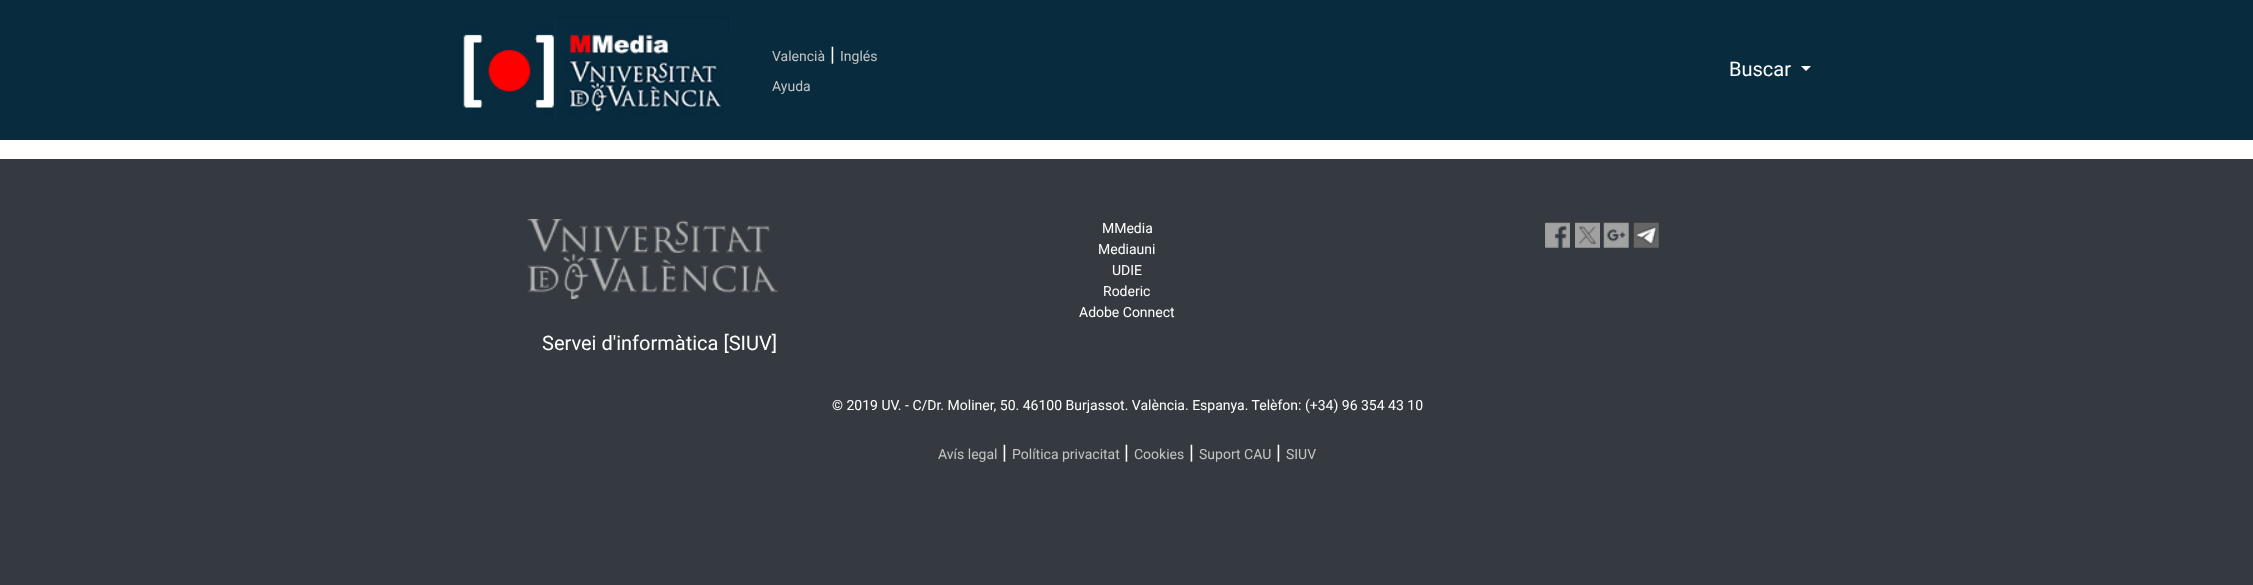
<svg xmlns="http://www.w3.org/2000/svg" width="2253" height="585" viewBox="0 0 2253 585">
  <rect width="100%" height="100%" fill="#fff"/>
  <path d="M0 0h2253v140H0z" fill="#082b3e"/>
  <image x="463" y="16" width="268" height="108" href="img/1.png"/>
  <path d="M1801 66H1811L1806 71Z" fill="#fff"/>
  <path d="M0 159h2253v426H0z" fill="#343a40"/>
  <image x="1545" y="222" width="25" height="26" href="img/2.png"/>
  <image x="1575" y="222" width="25" height="26" href="img/3.png"/>
  <image x="1603" y="222" width="26" height="26" href="img/4.png"/>
  <image x="1633" y="222" width="26" height="26" href="img/5.png"/>
  <image x="527" y="219" width="251" height="80" href="img/6.png"/>
  <text x="772" y="61" font-family="Roboto" font-size="14" fill="#c4c4c4">Valencià</text>
  <text x="830" y="61" font-family="Roboto" font-size="20" fill="#fff">|</text>
  <g font-family="Roboto" font-size="14" fill="#c4c4c4">
    <text x="840" y="61">Inglés</text>
    <text x="772" y="91">Ayuda</text>
  </g>
  <text x="1729" y="76" font-family="Roboto" font-size="20" fill="#fff">Buscar</text>
  <g font-family="Roboto" font-size="14" fill="#fff">
    <text x="1102" y="233">MMedia</text>
    <text x="1098" y="254">Mediauni</text>
    <text x="1112" y="275">UDIE</text>
    <text x="1103" y="296">Roderic</text>
    <text x="1079" y="317">Adobe Connect</text>
  </g>
  <text x="542" y="350" font-family="Roboto" font-size="20" fill="#fff">Servei d'informàtica [SIUV]</text>
  <text x="832" y="410" font-family="Roboto" font-size="14" fill="#fff">© 2019 UV. - C/Dr. Moliner, 50. 46100 Burjassot. València. Espanya. Telèfon: (+34) 96 354 43 10</text>
  <text x="938" y="459" font-family="Roboto" font-size="14" fill="#c4c4c4">Avís legal</text>
  <text x="1002" y="459" font-family="Roboto" font-size="20" fill="#fff">|</text>
  <text x="1012" y="459" font-family="Roboto" font-size="14" fill="#c4c4c4">Política privacitat</text>
  <text x="1124" y="459" font-family="Roboto" font-size="20" fill="#fff">|</text>
  <text x="1134" y="459" font-family="Roboto" font-size="14" fill="#c4c4c4">Cookies</text>
  <text x="1189" y="459" font-family="Roboto" font-size="20" fill="#fff">|</text>
  <text x="1199" y="459" font-family="Roboto" font-size="14" fill="#c4c4c4">Suport CAU</text>
  <text x="1276" y="459" font-family="Roboto" font-size="20" fill="#fff">|</text>
  <text x="1286" y="459" font-family="Roboto" font-size="14" fill="#c4c4c4">SIUV</text>
</svg>
